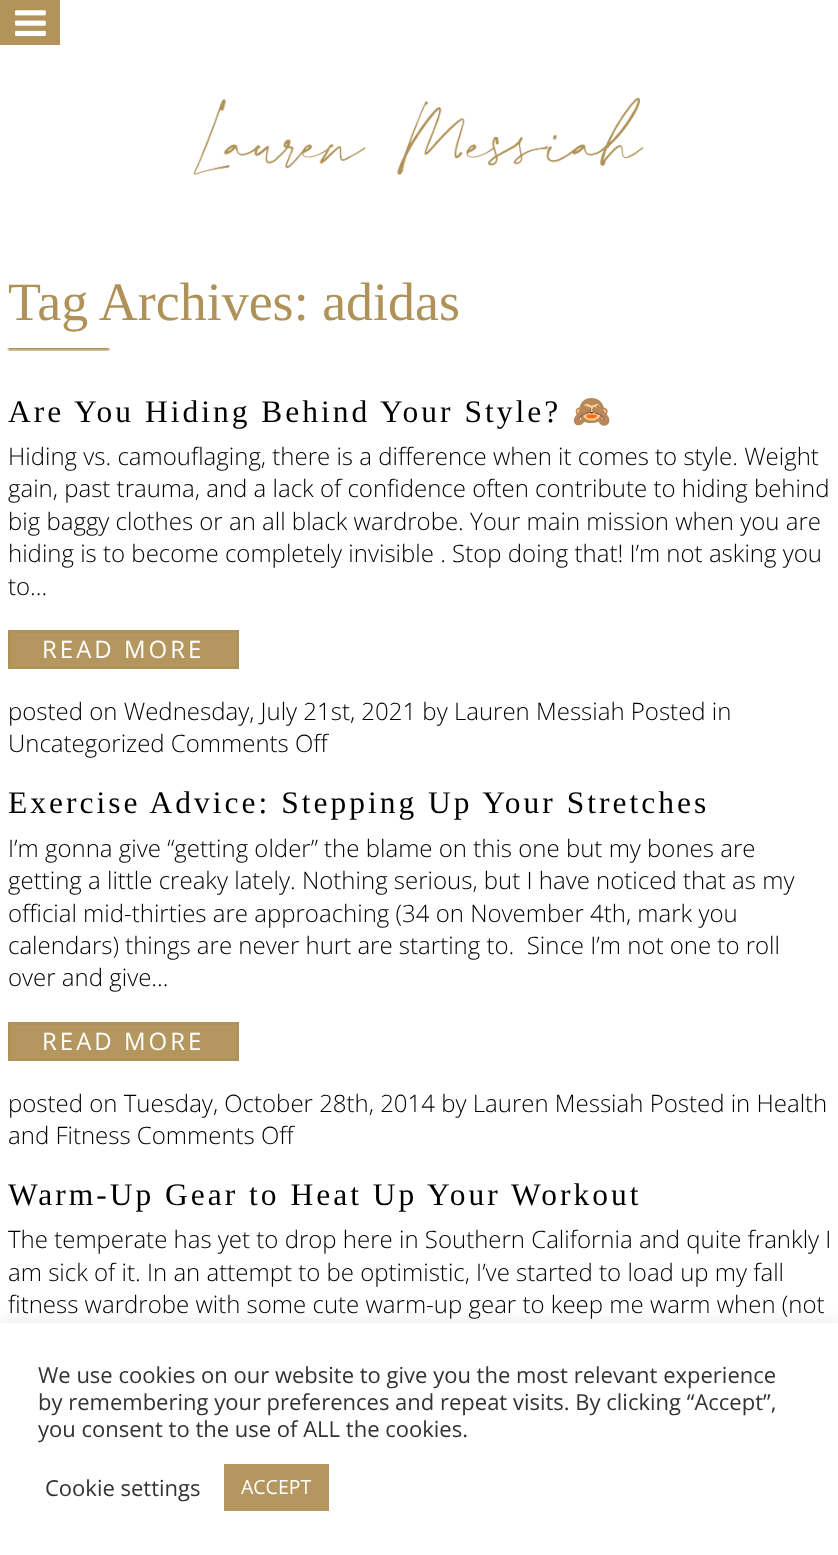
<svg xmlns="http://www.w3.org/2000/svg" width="838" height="1555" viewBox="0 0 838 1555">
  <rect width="100%" height="100%" fill="#fff"/>
  <path d="M0 0h60v45H0z" fill="#b2945a"/>
  <image x="15" y="10" width="31" height="26" href="img/1.png"/>
  <image x="193" y="97" width="451" height="78" href="img/2.png"/>
  <image x="7" y="348" width="103" height="3" href="img/3.png"/>
  <path d="M9.5 631.5h228v36H9.5z" fill="#b4975f" stroke="#af9258" stroke-width="3"/>
  <path d="M9.5 1023.5h228v36H9.5z" fill="#b4975f" stroke="#af9258" stroke-width="3"/>
  <path d="M0 1322h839v232H0z" fill="#acabab4d" filter="blur(7.5px)"/>
  <path d="M0 1323h838v232H0z" fill="#fff"/>
  <path d="M224 1464h105v47H224z" fill="#b4975f"/>
  <text x="8" y="320" font-family="Liberation Serif" font-size="54" fill="#af9258">Tag Archives: adidas</text>
  <text x="8" y="422" font-family="Liberation Serif" font-size="31.5" letter-spacing="3" fill="#000">Are You Hiding Behind Your Style?</text>
  <text x="572" y="422" font-family="Noto Color Emoji" font-size="31.5" letter-spacing="3" fill="#000">🙈</text>
  <g font-family="Open Sans" font-size="24" font-weight="300" fill="#000">
    <text x="8" y="465">Hiding vs. camouflaging, there is a difference when it comes to style. Weight</text>
    <text x="8" y="497">gain, past trauma, and a lack of confidence often contribute to hiding behind</text>
    <text x="8" y="530">big baggy clothes or an all black wardrobe. Your main mission when you are</text>
    <text x="8" y="562">hiding is to become completely invisible . Stop doing that! I’m not asking you</text>
    <text x="8" y="595">to…</text>
  </g>
  <text x="42" y="658" font-family="Open Sans" font-size="24" letter-spacing="3" fill="#fff">READ MORE</text>
  <g font-family="Open Sans" font-size="24" font-weight="300" fill="#000">
    <text x="8" y="720">posted on Wednesday, July 21st, 2021 by Lauren Messiah Posted in</text>
    <text x="8" y="752">Uncategorized Comments Off</text>
  </g>
  <text x="8" y="813" font-family="Liberation Serif" font-size="31.5" letter-spacing="3" fill="#000">Exercise Advice: Stepping Up Your Stretches</text>
  <g font-family="Open Sans" font-size="24" font-weight="300" fill="#000">
    <text x="8" y="857">I’m gonna give “getting older” the blame on this one but my bones are</text>
    <text x="8" y="889">getting a little creaky lately. Nothing serious, but I have noticed that as my</text>
    <text x="8" y="922">official mid-thirties are approaching (34 on November 4th, mark you</text>
    <text x="8" y="954" xml:space="preserve">calendars) things are never hurt are starting to.  Since I’m not one to roll</text>
    <text x="8" y="986">over and give…</text>
  </g>
  <text x="42" y="1050" font-family="Open Sans" font-size="24" letter-spacing="3" fill="#fff">READ MORE</text>
  <g font-family="Open Sans" font-size="24" font-weight="300" fill="#000">
    <text x="8" y="1112">posted on Tuesday, October 28th, 2014 by Lauren Messiah Posted in Health</text>
    <text x="8" y="1144">and Fitness Comments Off</text>
  </g>
  <text x="8" y="1205" font-family="Liberation Serif" font-size="31.5" letter-spacing="3" fill="#000">Warm-Up Gear to Heat Up Your Workout</text>
  <g font-family="Open Sans" font-size="24" font-weight="300" fill="#000">
    <text x="8" y="1248">The temperate has yet to drop here in Southern California and quite frankly I</text>
    <text x="8" y="1281">am sick of it. In an attempt to be optimistic, I’ve started to load up my fall</text>
    <text x="8" y="1313">fitness wardrobe with some cute warm-up gear to keep me warm when (not</text>
  </g>
  <g font-family="Open Sans" font-size="22" fill="#333">
    <text x="38" y="1383">We use cookies on our website to give you the most relevant experience</text>
    <text x="38" y="1410">by remembering your preferences and repeat visits. By clicking “Accept”,</text>
    <text x="38" y="1437">you consent to the use of ALL the cookies.</text>
    <text x="45" y="1496">Cookie settings</text>
  </g>
  <text x="241" y="1494" font-family="Open Sans" font-size="19.5" fill="#fff">ACCEPT</text>
</svg>
